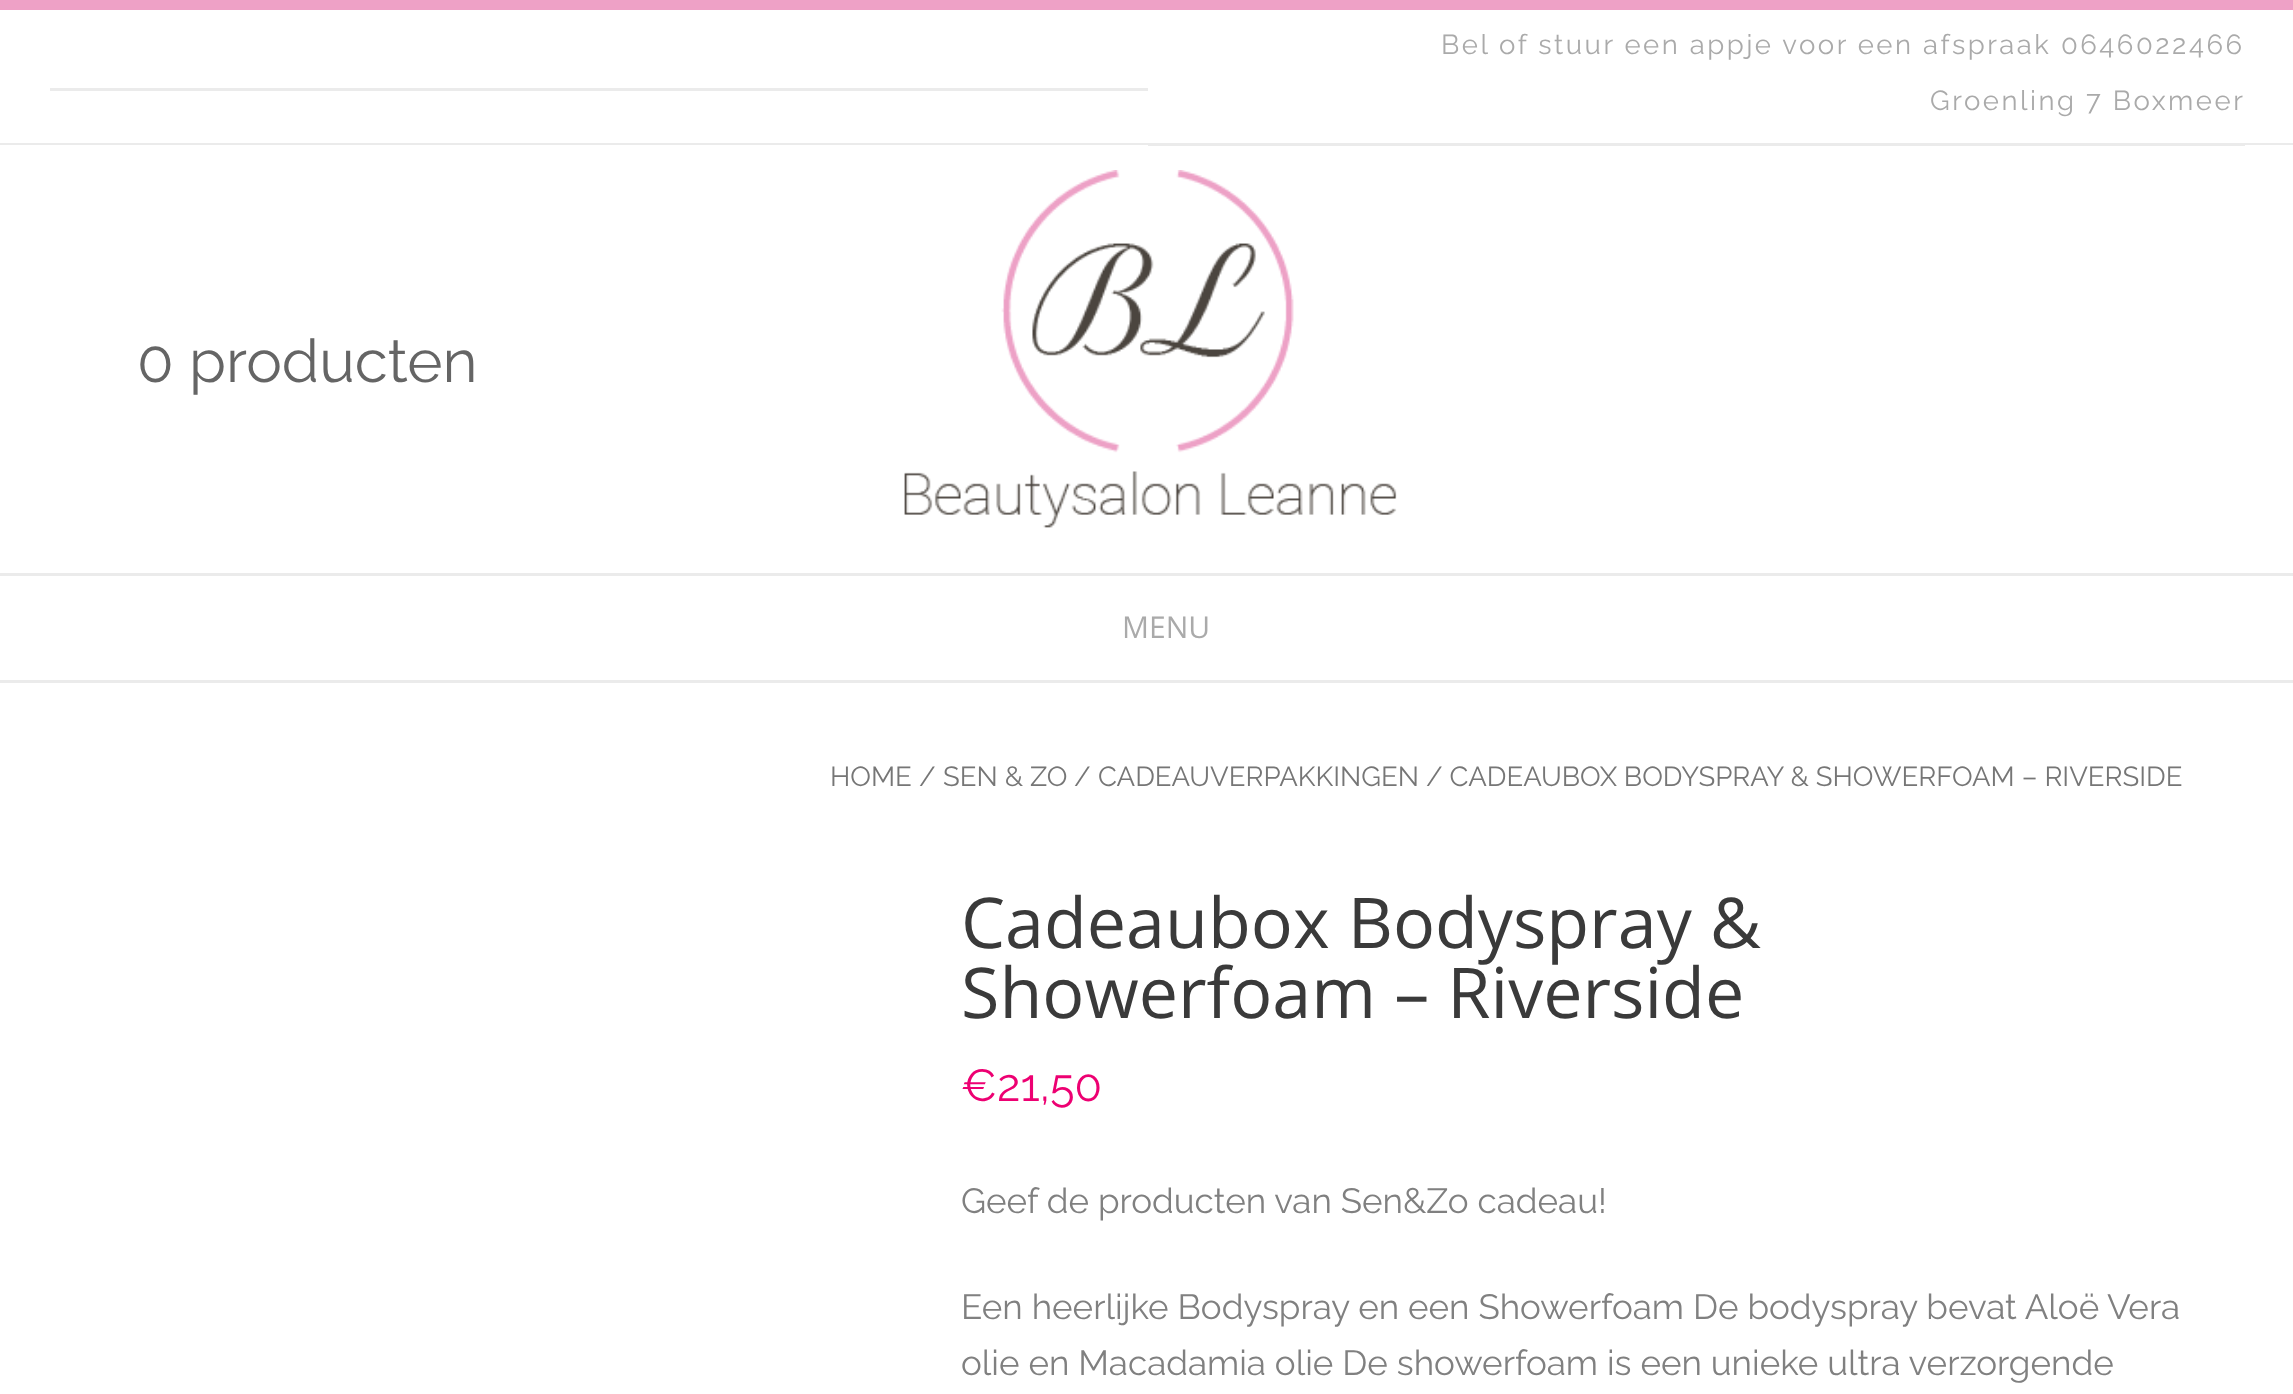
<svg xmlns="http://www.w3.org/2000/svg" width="2293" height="1394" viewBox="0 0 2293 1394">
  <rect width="100%" height="100%" fill="#fff"/>
  <path d="M0 0h2293v10H0z" fill="#eea1c6"/>
  <path d="M0 143h2293v2H0z" fill="#ebebeb"/>
  <path d="M50 88h1098v3H50z" fill="#ebebeb"/>
  <path d="M1148 145h1097v1H1148z" fill="#ebebeb"/>
  <image x="904" y="170" width="493" height="358" href="img/1.png"/>
  <path d="M0 573h2293v3H0z" fill="#ebebeb"/>
  <path d="M0 680h2293v3H0z" fill="#ebebeb"/>
  <g font-family="Raleway" font-size="27.5" letter-spacing="2.5" fill="#aaa">
    <text x="1441" y="54">Bel of stuur een appje voor een afspraak 0646022466</text>
    <text x="1930" y="110">Groenling 7 Boxmeer</text>
  </g>
  <text x="137" y="382" font-family="Raleway" font-size="60" fill="#656565">0 producten</text>
  <text x="1122" y="638" font-family="Open Sans" font-size="30" fill="#aaa">MENU</text>
  <g font-family="Raleway" font-size="27.5" fill="#767676">
    <text x="830" y="786">HOME</text>
    <text x="919" y="786">/</text>
    <text x="943" y="786">SEN &amp; ZO</text>
    <text x="1074" y="786">/</text>
    <text x="1098" y="786">CADEAUVERPAKKINGEN</text>
    <text x="1426" y="786">/ CADEAUBOX BODYSPRAY &amp; SHOWERFOAM – RIVERSIDE</text>
  </g>
  <g font-family="Open Sans" font-size="70" fill="#3a3a3a">
    <text x="961" y="948">Cadeaubox Bodyspray &amp;</text>
    <text x="961" y="1018">Showerfoam – Riverside</text>
  </g>
  <text x="961" y="1101" font-family="Raleway" font-size="45" fill="#ed0072">€21,50</text>
  <g font-family="Raleway" font-size="35" fill="#808080">
    <text x="961" y="1213">Geef de producten van Sen&amp;Zo cadeau!</text>
    <text x="961" y="1319">Een heerlijke Bodyspray en een Showerfoam De bodyspray bevat Aloë Vera</text>
    <text x="961" y="1375">olie en Macadamia olie De showerfoam is een unieke ultra verzorgende</text>
  </g>
</svg>
